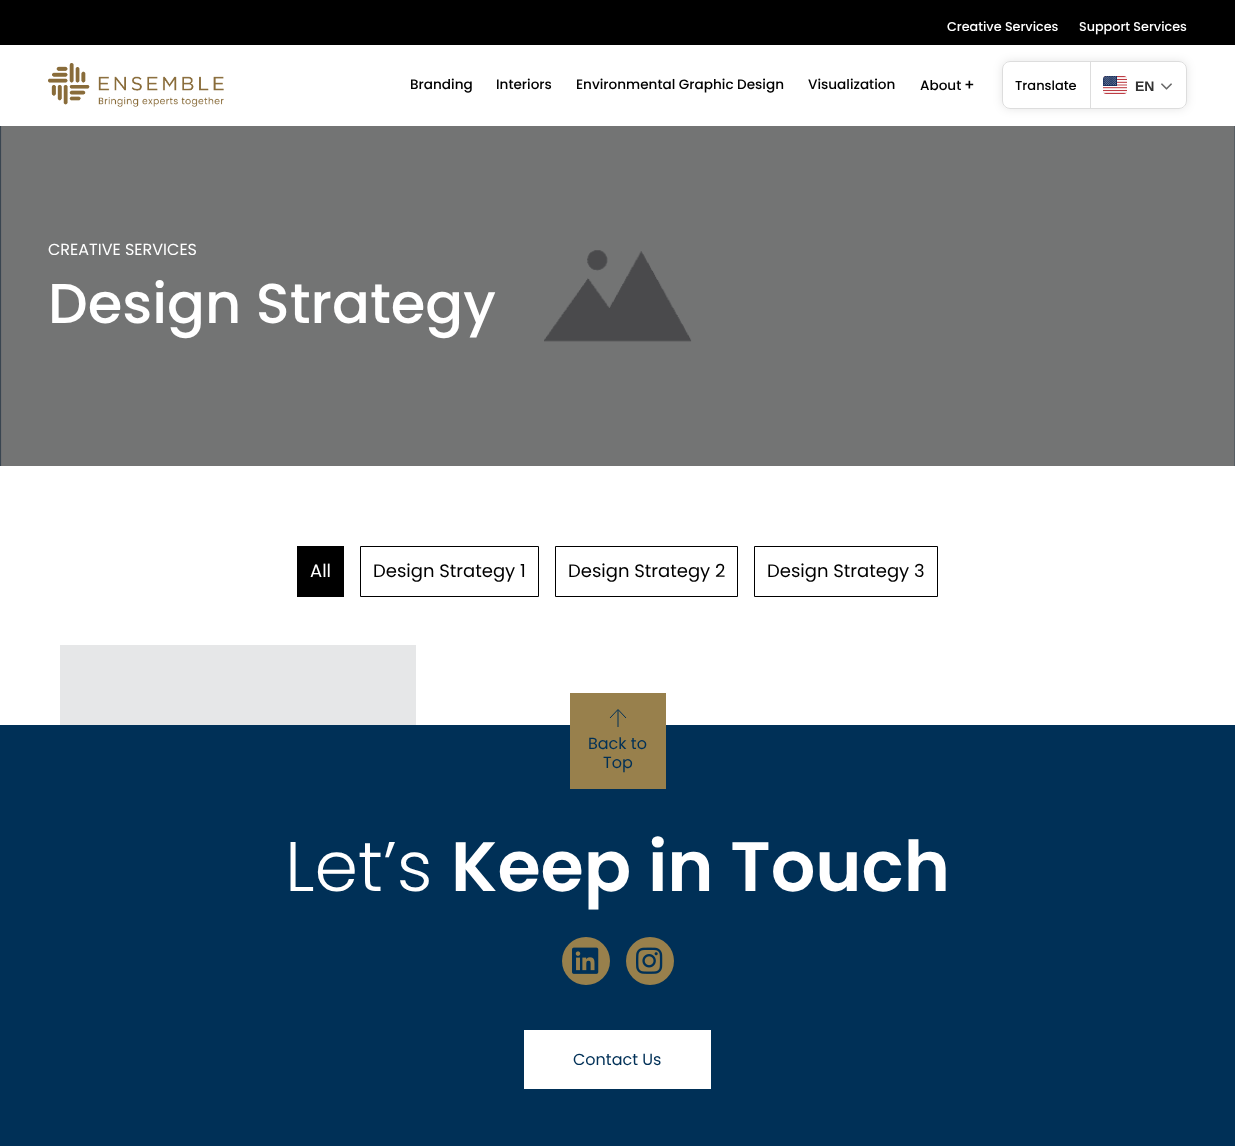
<svg xmlns="http://www.w3.org/2000/svg" width="1235" height="1146" viewBox="0 0 1235 1146">
  <defs>
    <clipPath id="clip1"><path d="M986 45H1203V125H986ZM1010 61H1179C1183.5 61 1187 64.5 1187 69V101C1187 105.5 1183.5 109 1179 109H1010C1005.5 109 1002 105.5 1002 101V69C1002 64.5 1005.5 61 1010 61Z" clip-rule="evenodd"/></clipPath>
  </defs>
  <rect width="100%" height="100%" fill="#fff"/>
  <path d="M0 0h1235v45H0z" fill="#000"/>
  <image x="48" y="63" width="176" height="44" href="img/1.png"/>
  <g clip-path="url(#clip1)">
    <rect x="1002" y="61" width="185" height="48" rx="8" fill="#0000001a" filter="blur(5px)"/>
  </g>
  <rect x="1002.5" y="61.5" width="184" height="47" rx="7.5" fill="none" stroke="#ddd"/>
  <path d="M1090 62h1v46H1090z" fill="#ddd"/>
  <image x="1103" y="76" width="24" height="18" href="img/2.png"/>
  <image x="1161" y="83" width="11" height="7" href="img/3.png"/>
  <path d="M0 126h1235v340H0z" fill="#00182c"/>
  <image x="0" y="126" width="1235" height="340" href="img/4.png"/>
  <path d="M297 546h47v51H297z" fill="#000"/>
  <path d="M360.5 546.5h178v50H360.5z" fill="none" stroke="#000"/>
  <path d="M555.5 546.5h182v50H555.5z" fill="none" stroke="#000"/>
  <path d="M754.5 546.5h183v50H754.5z" fill="none" stroke="#000"/>
  <path d="M60 645h356v80H60z" fill="#e6e7e8"/>
  <path d="M0 725h1235v421H0z" fill="#003057"/>
  <path d="M570 693h96v96H570z" fill="#98804c"/>
  <path d="M626 718L618 709.5L610 718M618 710V727" fill="none" stroke="#003057"/>
  <circle cx="586" cy="961" r="24" fill="#98804c"/>
  <image x="572" y="947" width="27" height="27" href="img/5.png"/>
  <circle cx="650" cy="961" r="24" fill="#98804c"/>
  <image x="636" y="947" width="27" height="27" href="img/6.png"/>
  <path d="M524 1030h187v59H524z" fill="#fff"/>
  <g font-family="Poppins" font-size="12.75" font-weight="500" fill="#fff">
    <text x="947" y="31">Creative Services</text>
    <text x="1079" y="31">Support Services</text>
  </g>
  <g font-family="Poppins" font-size="13.6" font-weight="500" fill="#000">
    <text x="410" y="89">Branding</text>
    <text x="496" y="89">Interiors</text>
    <text x="576" y="89">Environmental Graphic Design</text>
    <text x="808" y="89">Visualization</text>
    <text x="920" y="90">About</text>
  </g>
  <text x="964" y="90" font-family="Poppins" font-size="15" font-weight="500" fill="#000">+</text>
  <text x="1015" y="90" font-family="Poppins" font-size="13" font-weight="500" fill="#000">Translate</text>
  <text x="1135" y="91" font-family="Liberation Sans" font-size="14" font-weight="bold" fill="#333">EN</text>
  <text x="48" y="255" font-family="Poppins" font-size="16" fill="#fff">CREATIVE SERVICES</text>
  <text x="48" y="323" font-family="Poppins" font-size="56" font-weight="500" fill="#fff">Design Strategy</text>
  <text x="310" y="577" font-family="Poppins" font-size="18" fill="#fff">All</text>
  <g font-family="Poppins" font-size="18" fill="#000">
    <text x="373" y="577">Design Strategy 1</text>
    <text x="568" y="577">Design Strategy 2</text>
    <text x="767" y="577">Design Strategy 3</text>
  </g>
  <g font-family="Poppins" font-size="16" fill="#003057">
    <text x="588" y="749">Back to</text>
    <text x="603" y="768">Top</text>
  </g>
  <text x="285" y="891" font-family="Poppins" font-size="70" font-weight="300" fill="#fff">Let’s</text>
  <text x="451" y="891" font-family="Poppins" font-size="70" font-weight="600" fill="#fff">Keep in Touch</text>
  <text x="573" y="1065" font-family="Poppins" font-size="16" fill="#003057">Contact Us</text>
</svg>
